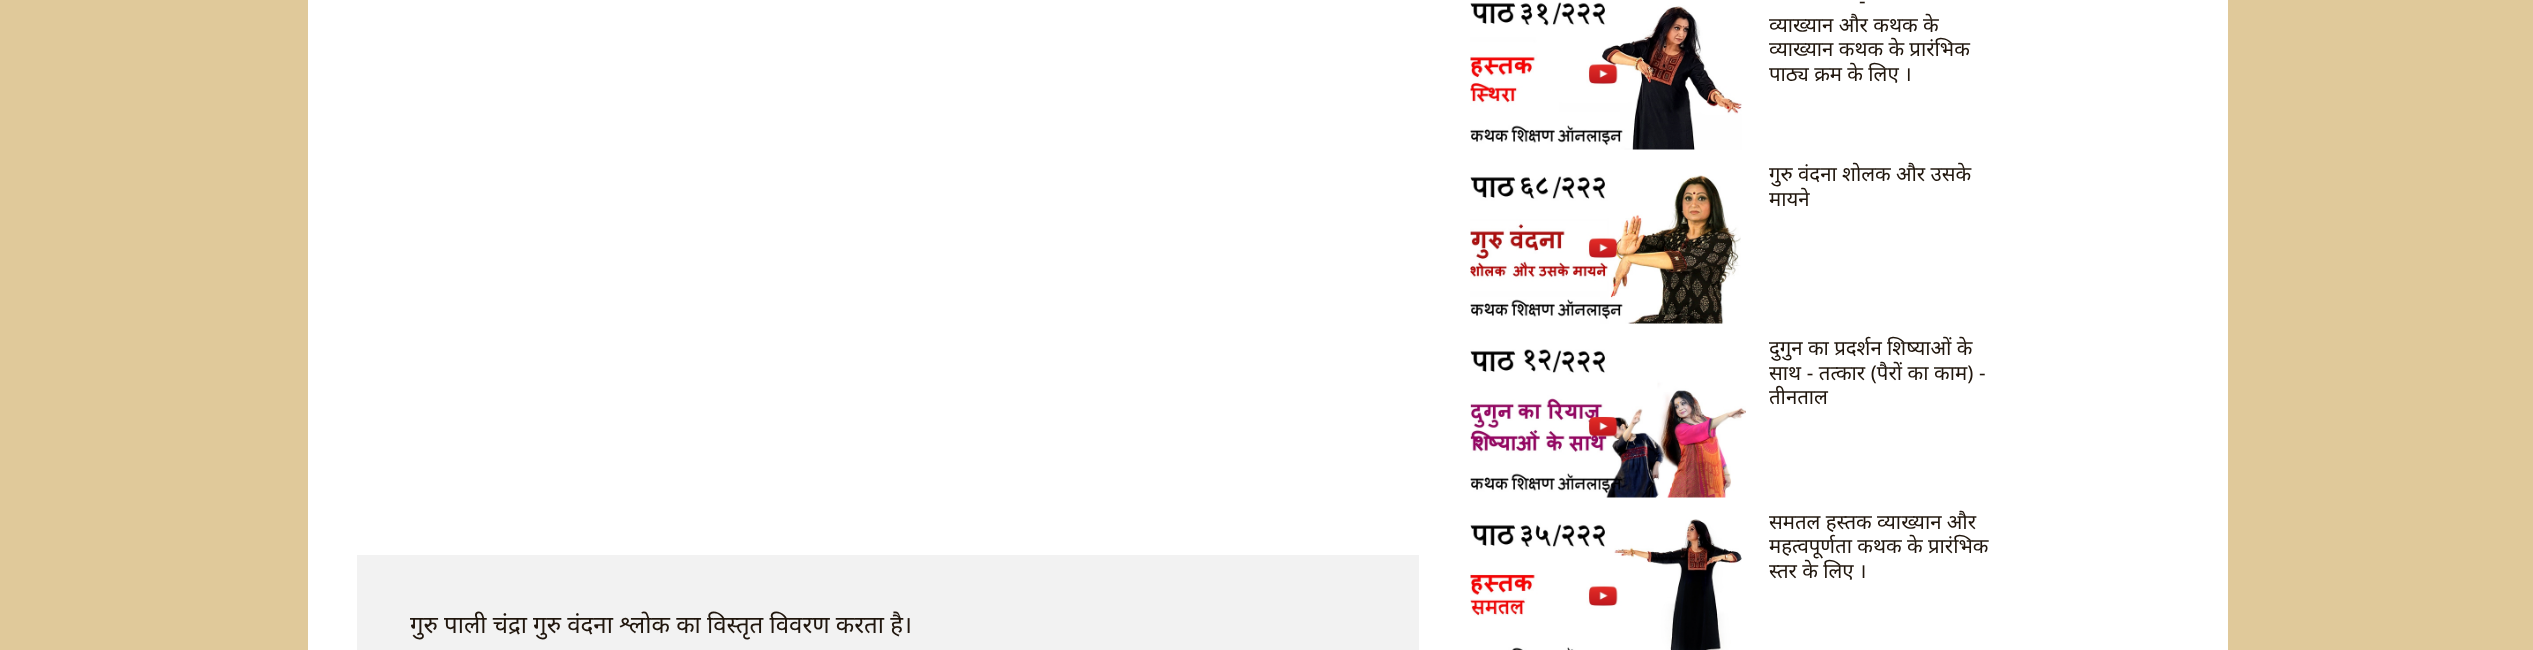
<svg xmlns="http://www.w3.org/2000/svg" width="2533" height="650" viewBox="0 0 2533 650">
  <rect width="100%" height="100%" fill="#e0c99a"/>
  <path d="M308 0h1920v650H308z" fill="#fff"/>
  <image x="1470" y="2" width="272" height="148" href="img/1.png"/>
  <image x="1470" y="175" width="271" height="149" href="img/2.png"/>
  <image x="1470" y="349" width="276" height="149" href="img/3.png"/>
  <image x="1470" y="519" width="272" height="131" href="img/4.png"/>
  <path d="M357 555h1062v95H357z" fill="#f2f2f2"/>
  <g font-family="Noto Sans" font-size="20.4" fill="#20160d">
    <text x="1859" y="8">-</text>
    <text x="1769" y="32">व्याख्यान और कथक के</text>
    <text x="1769" y="56">व्याख्यान कथक के प्रारंभिक</text>
    <text x="1769" y="81">पाठ्य क्रम के लिए ।</text>
    <text x="1769" y="181">गुरु वंदना शोलक और उसके</text>
    <text x="1769" y="206">मायने</text>
    <text x="1769" y="355">दुगुन का प्रदर्शन शिष्याओं के</text>
    <text x="1769" y="380" word-spacing="0.25">साथ - तत्कार (पैरों का काम) -</text>
    <text x="1769" y="404">तीनताल</text>
    <text x="1769" y="529">समतल हस्तक व्याख्यान और</text>
    <text x="1769" y="553">महत्वपूर्णता कथक के प्रारंभिक</text>
    <text x="1769" y="578">स्तर के लिए ।</text>
  </g>
  <text x="410" y="633" font-family="Noto Sans" font-size="24" fill="#20160d">गुरु पाली चंद्रा गुरु वंदना श्लोक का विस्तृत विवरण करता है।</text>
</svg>
